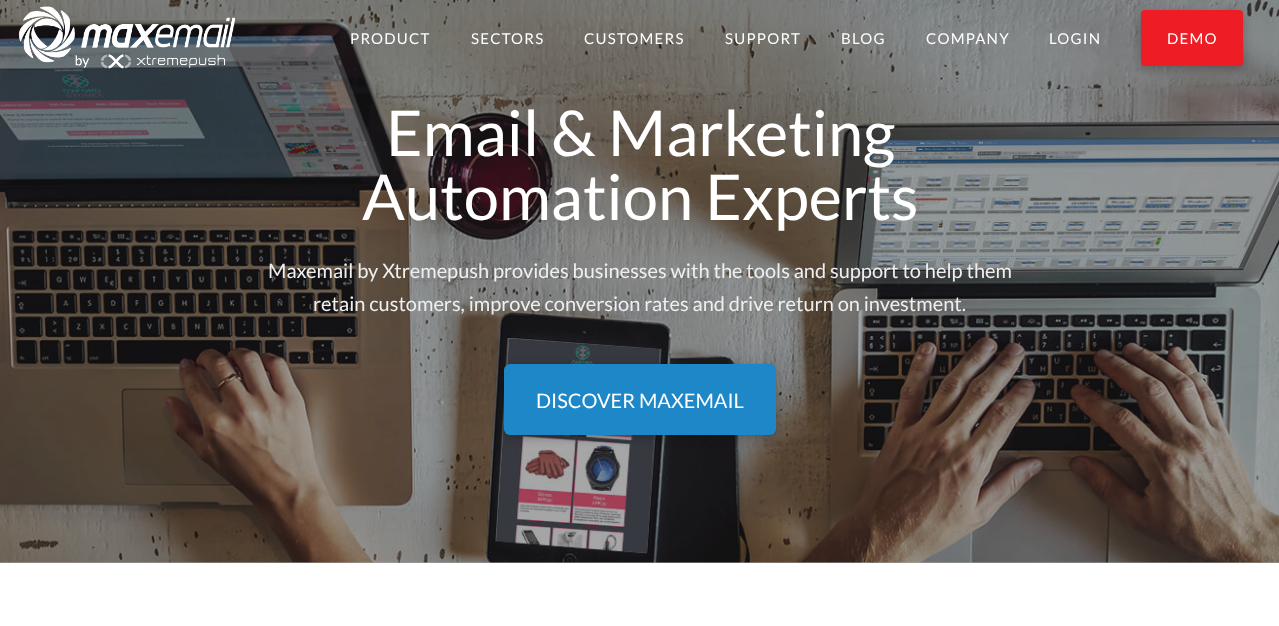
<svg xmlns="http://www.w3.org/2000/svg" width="1279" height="626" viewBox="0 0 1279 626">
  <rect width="100%" height="100%" fill="#fff"/>
  <path d="M0 562h1279v1H0z" fill="#a7a7a7"/>
  <image x="0" y="0" width="1279" height="563" href="img/2.png"/>
  <image x="18" y="6" width="217" height="63" href="img/1.png"/>
  <rect x="1141" y="13" width="102" height="56" rx="4" fill="#0000003d" filter="blur(5px)"/>
  <rect x="1141" y="10" width="102" height="56" rx="4" fill="#ed1c25"/>
  <rect x="504" y="366" width="272" height="72" rx="6" fill="#0000003d" filter="blur(5px)"/>
  <rect x="504" y="364" width="272" height="71" rx="6" fill="#1d87c8"/>
  <g font-family="Lato" font-size="15" letter-spacing="1.25" fill="#fff">
    <text x="350" y="44">PRODUCT</text>
    <text x="471" y="44">SECTORS</text>
    <text x="584" y="44">CUSTOMERS</text>
    <text x="725" y="44">SUPPORT</text>
    <text x="841" y="44">BLOG</text>
    <text x="926" y="44">COMPANY</text>
    <text x="1049" y="44">LOGIN</text>
    <text x="1167" y="44">DEMO</text>
  </g>
  <g font-family="Lato" font-size="63.25" fill="#fff">
    <text x="386" y="156">Email &amp; Marketing</text>
    <text x="362" y="220">Automation Experts</text>
  </g>
  <g font-family="Lato" font-size="20" fill="#efefef">
    <text x="268" y="278">Maxemail by Xtremepush provides businesses with the tools and support to help them</text>
    <text x="313" y="311">retain customers, improve conversion rates and drive return on investment.</text>
  </g>
  <text x="536" y="408" font-family="Lato" font-size="20" fill="#fff">DISCOVER MAXEMAIL</text>
</svg>
